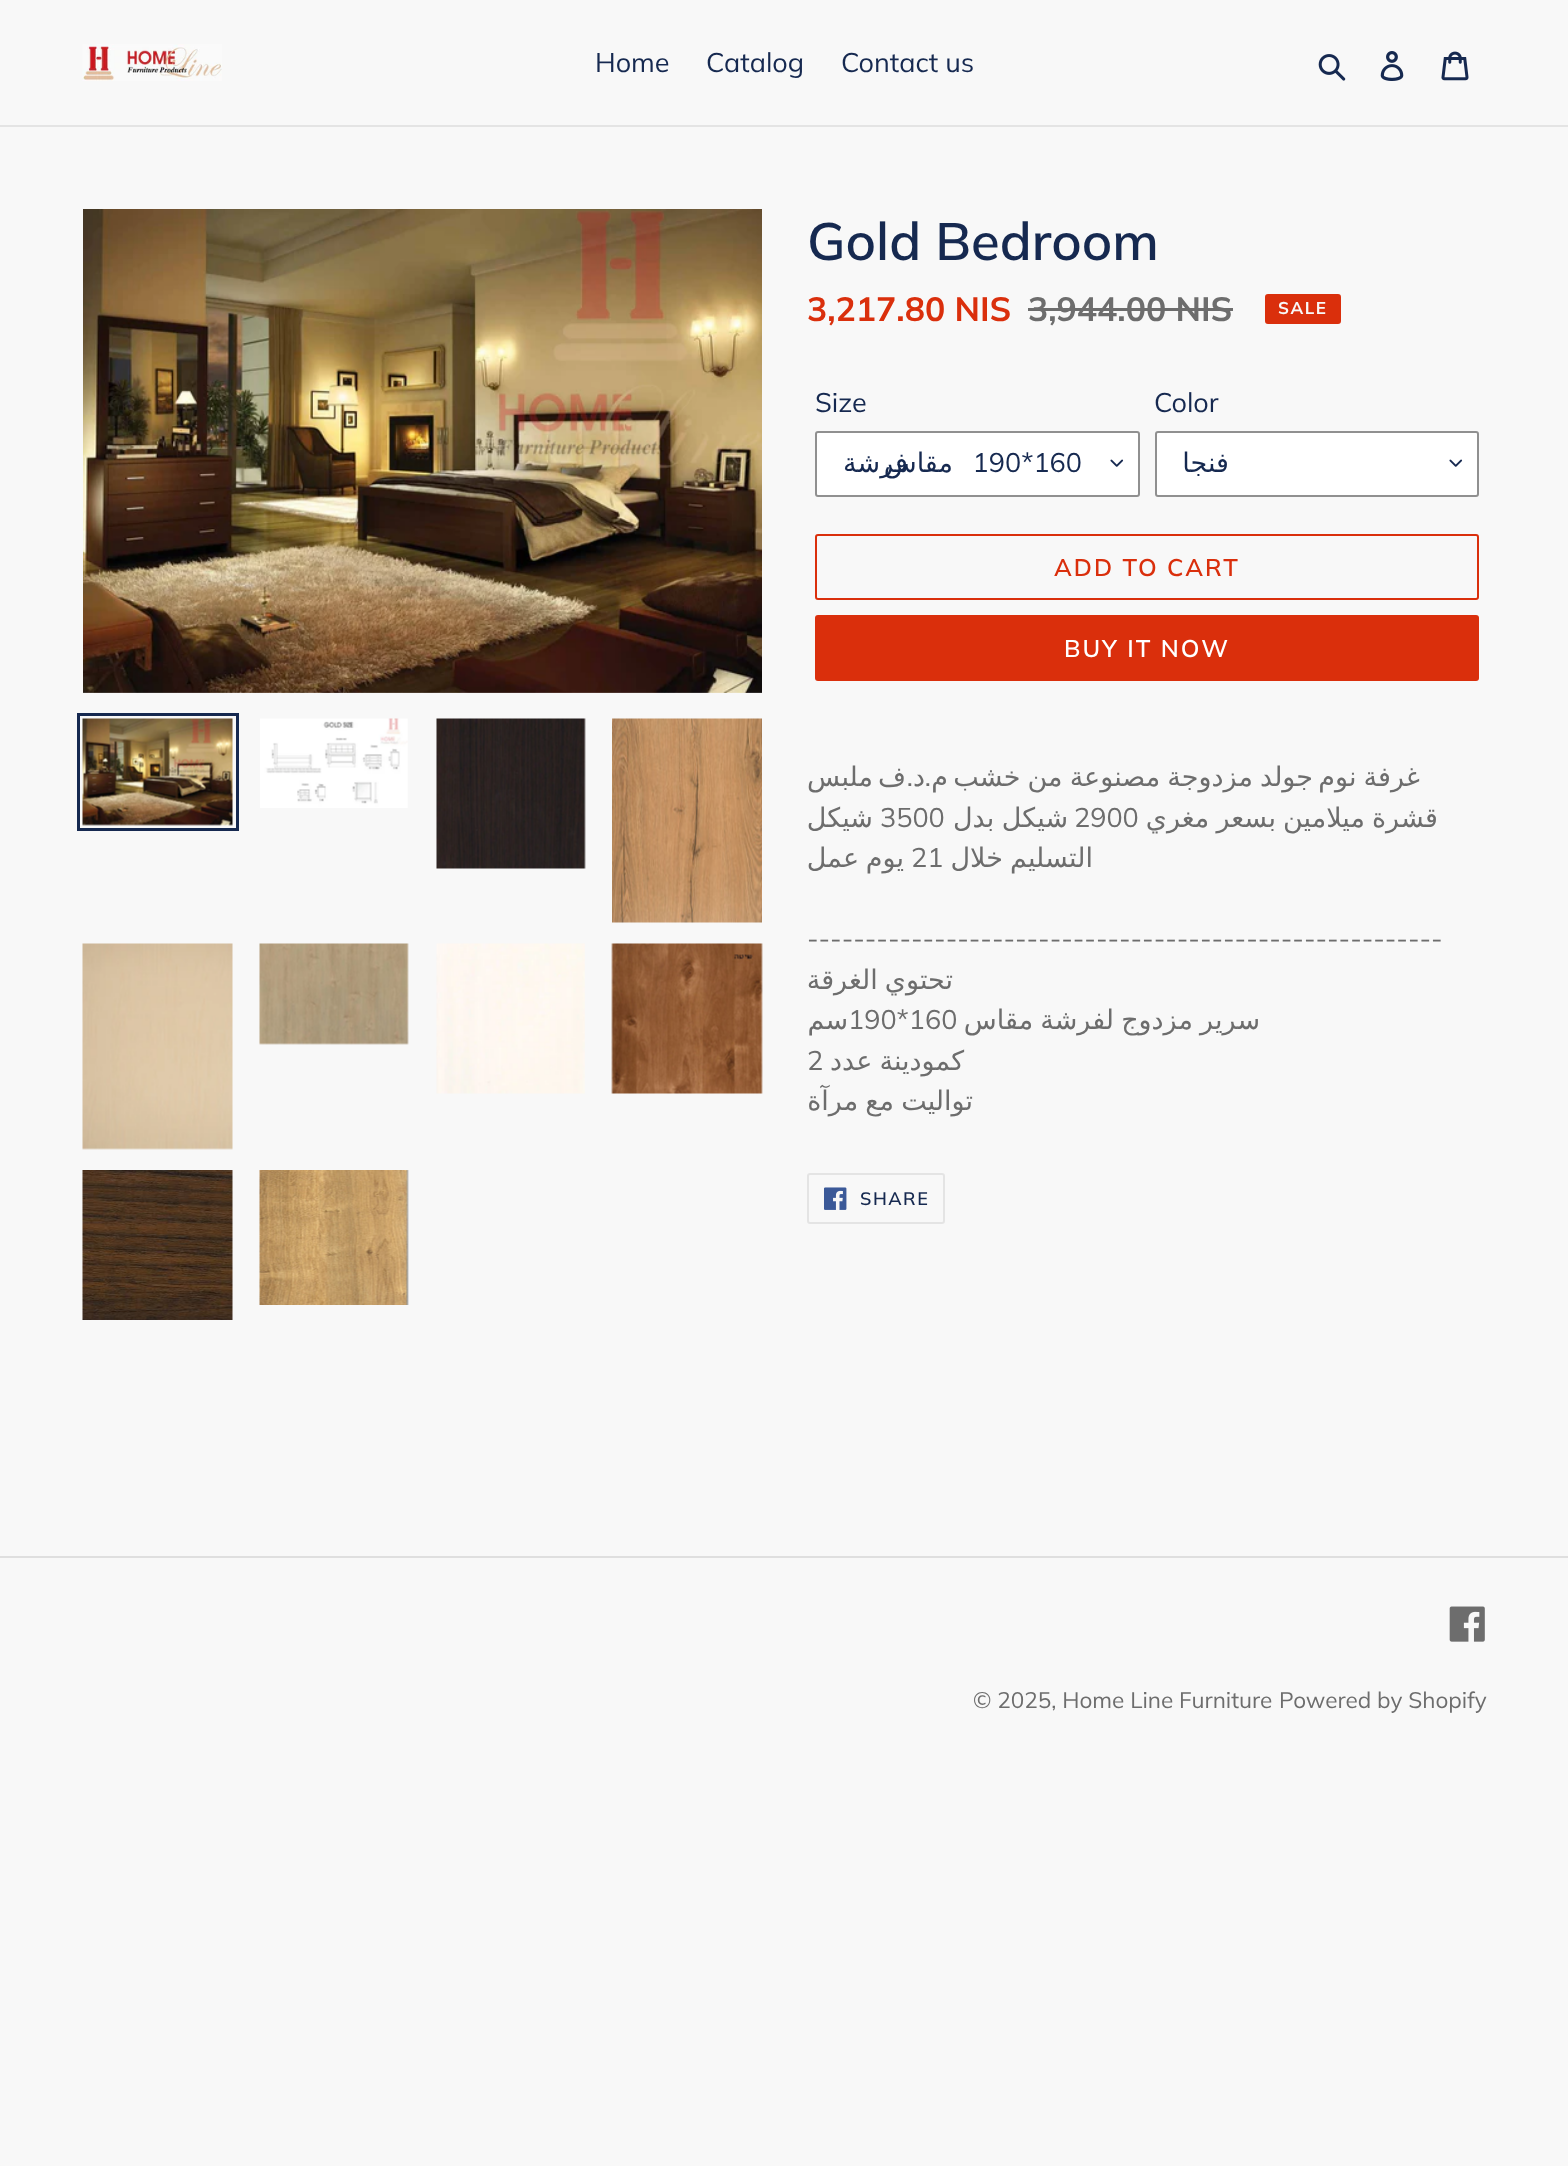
<svg xmlns="http://www.w3.org/2000/svg" width="1568" height="2166" viewBox="0 0 1568 2166">
  <rect width="100%" height="100%" fill="#f8f8f8"/>
  <path d="M0 125h1568v2H0z" fill="#e4e4e4"/>
  <image x="82" y="44" width="140" height="37" href="img/1.png"/>
  <image x="1318" y="54" width="28" height="27" href="img/2.png"/>
  <image x="1380" y="51" width="24" height="30" href="img/3.png"/>
  <image x="1441" y="51" width="28" height="30" href="img/4.png"/>
  <image x="83" y="209" width="679" height="484" href="img/5.png"/>
  <path d="M78.5 714.5h159v115H78.5z" fill="none" stroke="#162950" stroke-width="3"/>
  <image x="82" y="718" width="151" height="108" href="img/6.png"/>
  <image x="260" y="718" width="148" height="90" href="img/7.png"/>
  <image x="436" y="718" width="150" height="151" href="img/8.png"/>
  <image x="612" y="718" width="150" height="205" href="img/9.png"/>
  <image x="82" y="943" width="151" height="207" href="img/10.png"/>
  <image x="259" y="943" width="150" height="102" href="img/11.png"/>
  <image x="436" y="943" width="149" height="151" href="img/12.png"/>
  <image x="611" y="943" width="152" height="151" href="img/13.png"/>
  <image x="82" y="1170" width="151" height="150" href="img/14.png"/>
  <image x="259" y="1170" width="150" height="135" href="img/15.png"/>
  <path d="M1028 308h205v3H1028z" fill="#6d6d6d"/>
  <rect x="1266" y="295" width="74" height="28" rx="2" fill="#da2f0c" stroke="#da2f0c" stroke-width="2"/>
  <rect x="815" y="431" width="325" height="66" rx="3" fill="#fff"/>
  <image x="1110" y="459" width="14" height="8" href="img/16.png"/>
  <rect x="816" y="432" width="323" height="64" rx="2" fill="none" stroke="#909090" stroke-width="2"/>
  <rect x="1155" y="431" width="324" height="66" rx="3" fill="#fff"/>
  <image x="1449" y="459" width="14" height="8" href="img/16.png"/>
  <rect x="1156" y="432" width="322" height="64" rx="2" fill="none" stroke="#909090" stroke-width="2"/>
  <rect x="816" y="535" width="662" height="64" rx="2" fill="none" stroke="#da2f0c" stroke-width="2"/>
  <rect x="815" y="615" width="664" height="66" rx="3" fill="#da2f0c"/>
  <rect x="808" y="1174" width="136" height="49" rx="2" fill="none" stroke="#e4e4e4" stroke-width="2"/>
  <image x="824" y="1187" width="23" height="23" href="img/17.png"/>
  <path d="M0 1556h1568v2H0z" fill="#dfdfdf"/>
  <image x="1449" y="1606" width="36" height="36" href="img/18.png"/>
  <g font-family="Muli" font-size="27" fill="#162950">
    <text x="595" y="72">Home</text>
    <text x="706" y="72">Catalog</text>
    <text x="841" y="72">Contact us</text>
  </g>
  <text x="807" y="260" font-family="Muli" font-size="52.5" font-weight="600" fill="#162950">Gold Bedroom</text>
  <text x="807" y="321" font-family="Muli" font-size="33.75" font-weight="bold" fill="#da2f0c">3,217.80 NIS</text>
  <text x="1028" y="321" font-family="Muli" font-size="33.75" font-weight="bold" fill="#6d6d6d">3,944.00 NIS</text>
  <text x="1278" y="314" font-family="Muli" font-size="17" font-weight="bold" letter-spacing="1.5" fill="#f8f8f8">SALE</text>
  <text x="815" y="412" font-family="Muli" font-size="27" fill="#162950">Size</text>
  <g font-family="DejaVu Sans" font-size="27" direction="rtl" fill="#162950">
    <text x="908" y="472">فرشة</text>
    <text x="953" y="472">مقاس</text>
  </g>
  <text x="1082" y="472" font-family="Muli" font-size="27" direction="rtl" fill="#162950">160*190</text>
  <text x="1154" y="412" font-family="Muli" font-size="27" fill="#162950">Color</text>
  <text x="1229" y="472" font-family="DejaVu Sans" font-size="27" direction="rtl" fill="#162950">فنجا</text>
  <text x="1054" y="576" font-family="Muli" font-size="24" font-weight="600" letter-spacing="2" fill="#da2f0c">ADD TO CART</text>
  <text x="1064" y="657" font-family="Muli" font-size="24" font-weight="600" letter-spacing="2" fill="#fff">BUY IT NOW</text>
  <g font-family="DejaVu Sans" font-size="27" direction="rtl" fill="#6d6d6d">
    <text x="873" y="786">ملبس</text>
    <text x="906" y="786">ف</text>
  </g>
  <text x="913" y="786" font-family="Muli" font-size="27" direction="rtl" fill="#6d6d6d">.</text>
  <text x="925" y="786" font-family="DejaVu Sans" font-size="27" direction="rtl" fill="#6d6d6d">د</text>
  <text x="931" y="786" font-family="Muli" font-size="27" direction="rtl" fill="#6d6d6d">.</text>
  <g font-family="DejaVu Sans" font-size="27" direction="rtl" fill="#6d6d6d">
    <text x="948" y="786">م</text>
    <text x="1313" y="786" word-spacing="-1.5">جولد مزدوجة مصنوعة من خشب</text>
    <text x="1420" y="786" word-spacing="-1.5">غرفة نوم</text>
    <text x="873" y="827">شيكل</text>
  </g>
  <text x="880" y="827" font-family="Muli" font-size="27" fill="#6d6d6d">3500</text>
  <text x="1068" y="827" word-spacing="-1" font-family="DejaVu Sans" font-size="27" direction="rtl" fill="#6d6d6d">شيكل بدل</text>
  <text x="1074" y="827" font-family="Muli" font-size="27" fill="#6d6d6d">2900</text>
  <g font-family="DejaVu Sans" font-size="27" direction="rtl" fill="#6d6d6d">
    <text x="1438" y="827" word-spacing="-1.5">قشرة ميلامين بسعر مغري</text>
    <text x="859" y="867">عمل</text>
    <text x="904" y="867">يوم</text>
  </g>
  <text x="911" y="867" font-family="Muli" font-size="27" fill="#6d6d6d">21</text>
  <text x="1093" y="867" word-spacing="-1.5" font-family="DejaVu Sans" font-size="27" direction="rtl" fill="#6d6d6d">التسليم خلال</text>
  <text x="807" y="948" font-family="Muli" font-size="27" fill="#6d6d6d">-------------------------------------------------------</text>
  <g font-family="DejaVu Sans" font-size="27" direction="rtl" fill="#6d6d6d">
    <text x="953" y="989" word-spacing="-1.5">تحتوي الغرقة</text>
    <text x="848" y="1029">سم</text>
  </g>
  <text x="848" y="1029" font-family="Muli" font-size="27" fill="#6d6d6d">190*160</text>
  <text x="1260" y="1029" word-spacing="-1.5" font-family="DejaVu Sans" font-size="27" direction="rtl" fill="#6d6d6d">سرير مزدوج لفرشة مقاس</text>
  <text x="807" y="1070" font-family="Muli" font-size="27" fill="#6d6d6d">2</text>
  <g font-family="DejaVu Sans" font-size="27" direction="rtl" fill="#6d6d6d">
    <text x="964" y="1070" word-spacing="-1.5">كمودينة عدد</text>
    <text x="973" y="1110" word-spacing="-1.5">تواليت مع مرآة</text>
  </g>
  <text x="860" y="1205" font-family="Muli" font-size="18" font-weight="600" letter-spacing="1.5" fill="#162950">SHARE</text>
  <g font-family="Muli" font-size="22.5" fill="#6d6d6d">
    <text x="973" y="1708">© 2025, Home Line Furniture</text>
    <text x="1279" y="1708">Powered by Shopify</text>
  </g>
</svg>
